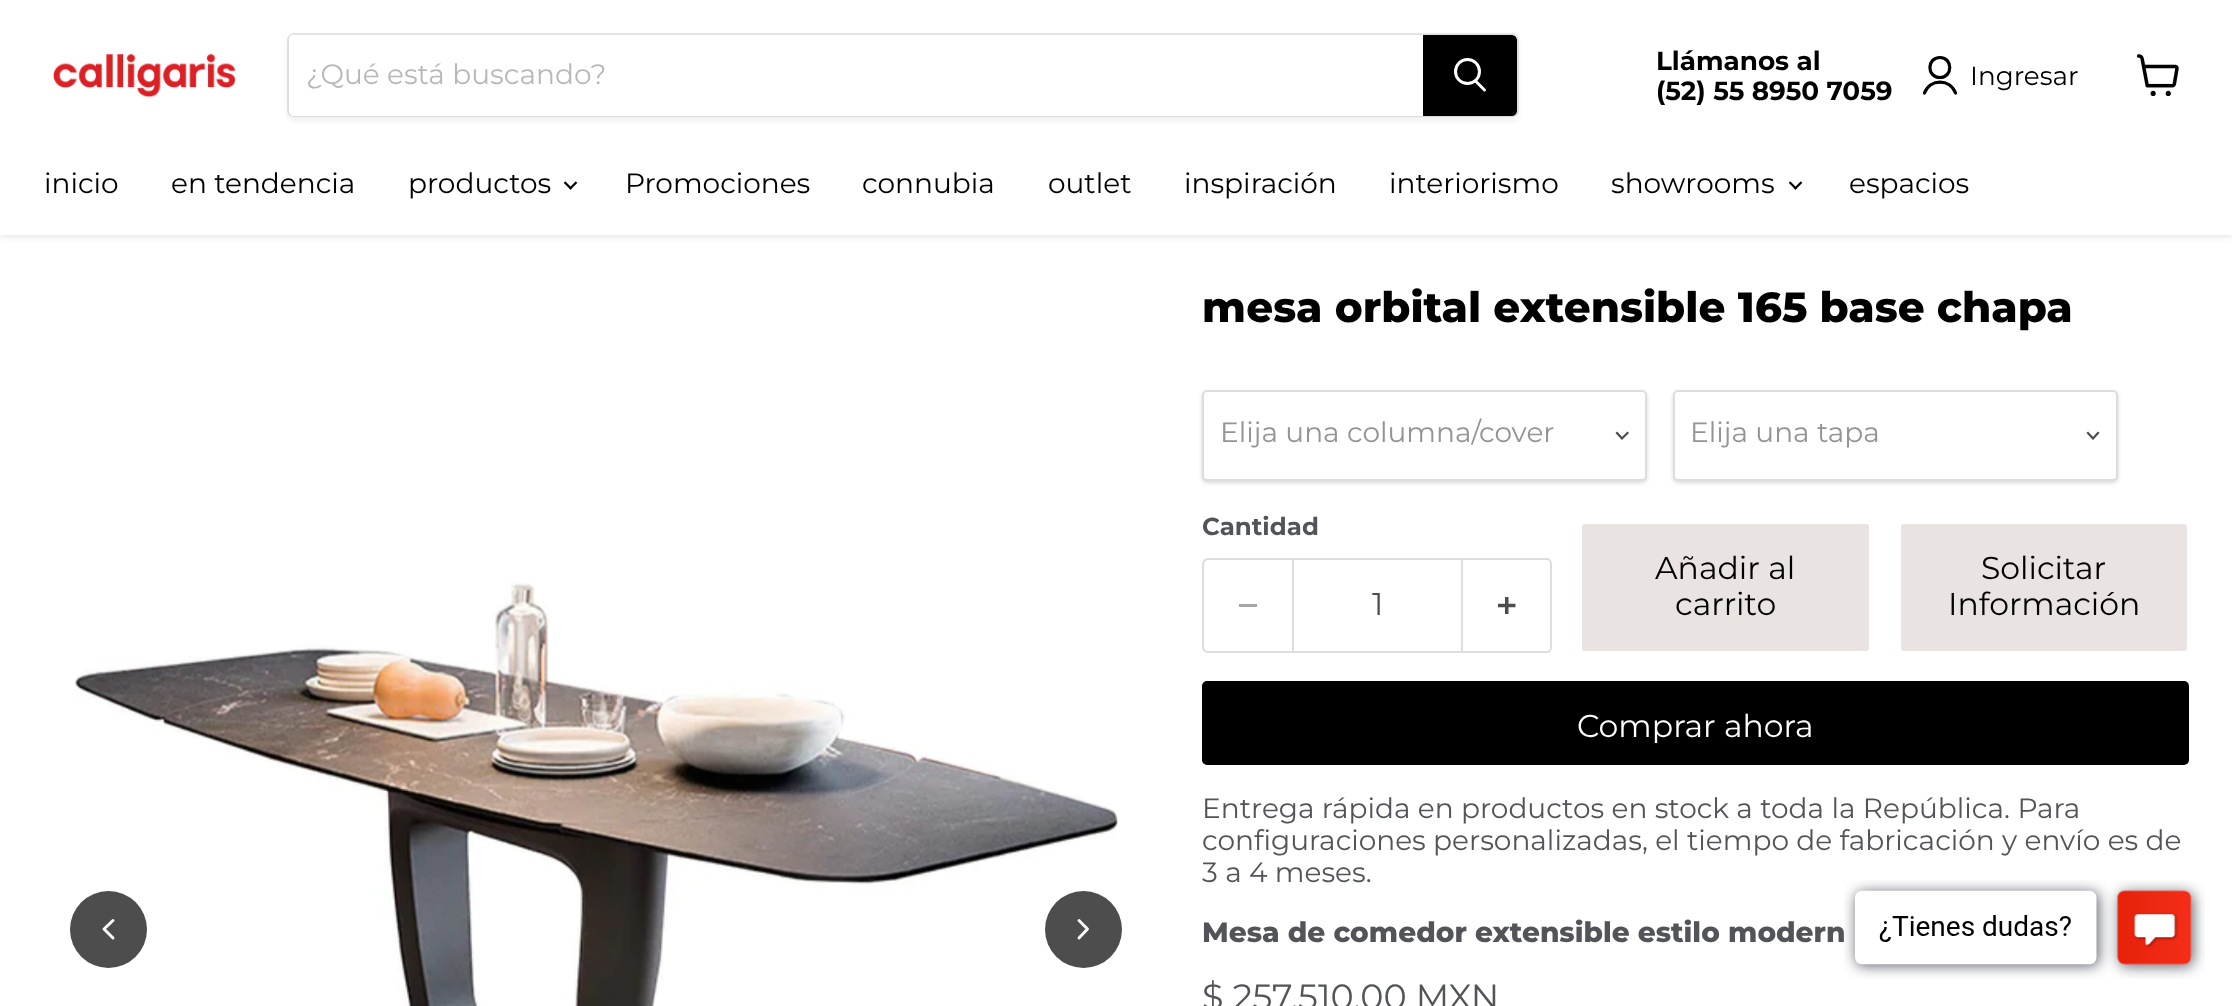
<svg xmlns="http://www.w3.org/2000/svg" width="2232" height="1006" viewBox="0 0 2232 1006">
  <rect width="100%" height="100%" fill="#fff"/>
  <path d="M0 2h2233v234H0z" fill="#80808040" filter="blur(3.5px)"/>
  <path d="M0 0h2232v235H0z" fill="#fff"/>
  <image x="52" y="53" width="184" height="45" href="img/1.png"/>
  <rect x="287" y="37" width="1232" height="84" rx="7" fill="#8080801c" filter="blur(2.5px)"/>
  <rect x="288" y="34" width="1230" height="82" rx="6" fill="none" stroke="#80808033" stroke-width="2"/>
  <path d="M294 35H1423V116H294C291 116 289 114 289 111V40C289 37 291 35 294 35Z" fill="#fff"/>
  <path d="M1424 36H1512C1514 36 1516 38 1516 40V111C1516 113 1514 115 1512 115H1424Z" fill="#000" stroke="#000" stroke-width="2"/>
  <path d="M1484.5 90L1476 81.5" fill="none" stroke="#fff" stroke-width="3" stroke-linecap="round"/>
  <circle cx="1467.5" cy="71.5" r="12" fill="none" stroke="#fff" stroke-width="3"/>
  <path d="M1940 77.5C1953 77.5 1953 57.5 1940 57.5C1926.5 57.5 1926.5 77.5 1940 77.5ZM1955.5 93C1950 78.5 1930 78.5 1924.5 93" fill="none" stroke="#000" stroke-width="3.2" stroke-linecap="round" stroke-linejoin="round"/>
  <image x="2137" y="54" width="42" height="42" href="img/2.png"/>
  <image x="564" y="181" width="14" height="9" href="img/3.png"/>
  <image x="1789" y="181" width="14" height="9" href="img/3.png"/>
  <image x="75" y="581" width="1043" height="425" href="img/4.png"/>
  <circle cx="108.5" cy="929.5" r="38.5" fill="#4d4d4d"/>
  <path d="M113 938L104 929L113 920.5" fill="none" stroke="#fff" stroke-width="2.9" stroke-linecap="round" stroke-linejoin="round"/>
  <circle cx="1083.5" cy="929.5" r="38.5" fill="#4d4d4d"/>
  <path d="M1079 938L1087.5 929L1079 920.5" fill="none" stroke="#fff" stroke-width="2.9" stroke-linecap="round" stroke-linejoin="round"/>
  <rect x="1202" y="392" width="445" height="91" rx="5" fill="#00000026" filter="blur(2px)"/>
  <rect x="1203" y="391" width="443" height="89" rx="4" fill="#fff" stroke="#ddd" stroke-width="2"/>
  <path d="M1622 438.5L1627.5 433M1622 438.5L1617 433" fill="none" stroke="#4d4d4d" stroke-width="2.2" stroke-linecap="square"/>
  <rect x="1673" y="392" width="445" height="91" rx="5" fill="#00000026" filter="blur(2px)"/>
  <rect x="1674" y="391" width="443" height="89" rx="4" fill="#fff" stroke="#ddd" stroke-width="2"/>
  <path d="M2093 438.5L2098 433M2093 438.5L2088 433" fill="none" stroke="#4d4d4d" stroke-width="2.2" stroke-linecap="square"/>
  <path d="M1208 558H1292V653H1208C1205 653 1202 650 1202 648V564C1202 561 1205 558 1208 558ZM1208 560H1292V651H1208C1206 651 1204 649 1204 648V564C1204 562 1206 560 1208 560Z" fill="#ddd" fill-rule="evenodd"/>
  <path d="M1239 604h18v3H1239z" fill="#a6a6a6"/>
  <path d="M1293 559h169v93H1293z" fill="none" stroke="#ddd" stroke-width="2"/>
  <path d="M1463 558H1547C1550 558 1552 561 1552 564V648C1552 650 1550 653 1547 653H1463ZM1463 560H1547C1549 560 1550 562 1550 564V648C1550 649 1549 651 1547 651H1463Z" fill="#ddd" fill-rule="evenodd"/>
  <image x="1498" y="597" width="18" height="17" href="img/5.png"/>
  <rect x="1581" y="523" width="289" height="129" rx="4" fill="#e9e4e1" stroke="#fff" stroke-width="2"/>
  <rect x="1900" y="523" width="288" height="129" rx="4" fill="#e9e4e1" stroke="#fff" stroke-width="2"/>
  <rect x="1203" y="682" width="985" height="82" rx="4" fill="#000" stroke="#000" stroke-width="2"/>
  <text x="306" y="84" font-family="Montserrat" font-size="28" fill="#b8b8b8">¿Qué está buscando?</text>
  <g font-family="Montserrat" font-size="26.25" font-weight="bold" fill="#000">
    <text x="1656" y="70">Llámanos al</text>
    <text x="1656" y="100">(52) 55 8950 7059</text>
  </g>
  <text x="1970" y="85" font-family="Montserrat" font-size="26.25" fill="#000">Ingresar</text>
  <g font-family="Montserrat" font-size="28" fill="#000">
    <text x="44" y="193">inicio</text>
    <text x="171" y="193">en tendencia</text>
    <text x="408" y="193">productos</text>
    <text x="625" y="193">Promociones</text>
    <text x="862" y="193">connubia</text>
    <text x="1048" y="193">outlet</text>
    <text x="1184" y="193">inspiración</text>
    <text x="1389" y="193">interiorismo</text>
    <text x="1611" y="193">showrooms</text>
    <text x="1849" y="193">espacios</text>
  </g>
  <text x="1202" y="322" font-family="Montserrat" font-size="42" font-weight="800" fill="#000">mesa orbital extensible 165 base chapa</text>
  <g font-family="Montserrat" font-size="28" fill="#949494">
    <text x="1220" y="442">Elija una columna/cover</text>
    <text x="1690" y="442">Elija una tapa</text>
  </g>
  <text x="1202" y="535" font-family="Montserrat" font-size="24.5" font-weight="bold" fill="#525459">Cantidad</text>
  <text x="1372" y="615" font-family="Montserrat" font-size="31.5" fill="#4d4d4d">1</text>
  <g font-family="Montserrat" font-size="31.5" fill="#000">
    <text x="1655" y="579">Añadir al</text>
    <text x="1675" y="615">carrito</text>
    <text x="1981" y="579">Solicitar</text>
    <text x="1948" y="615">Información</text>
  </g>
  <text x="1577" y="737" font-family="Montserrat" font-size="31.5" fill="#fff">Comprar ahora</text>
  <g font-family="Montserrat" font-size="28" fill="#525459">
    <text x="1202" y="818">Entrega rápida en productos en stock a toda la República. Para</text>
    <text x="1202" y="850">configuraciones personalizadas, el tiempo de fabricación y envío es de</text>
    <text x="1202" y="882">3 a 4 meses.</text>
  </g>
  <text x="1202" y="942" font-family="Montserrat" font-size="28" font-weight="800" fill="#525459">Mesa de comedor extensible estilo modern</text>
  <text x="1202" y="1009" font-family="Montserrat" font-size="35" fill="#525459">$ 257,510.00 MXN</text>
  <image x="1844" y="880" width="361" height="99" href="img/6.png"/>
</svg>
